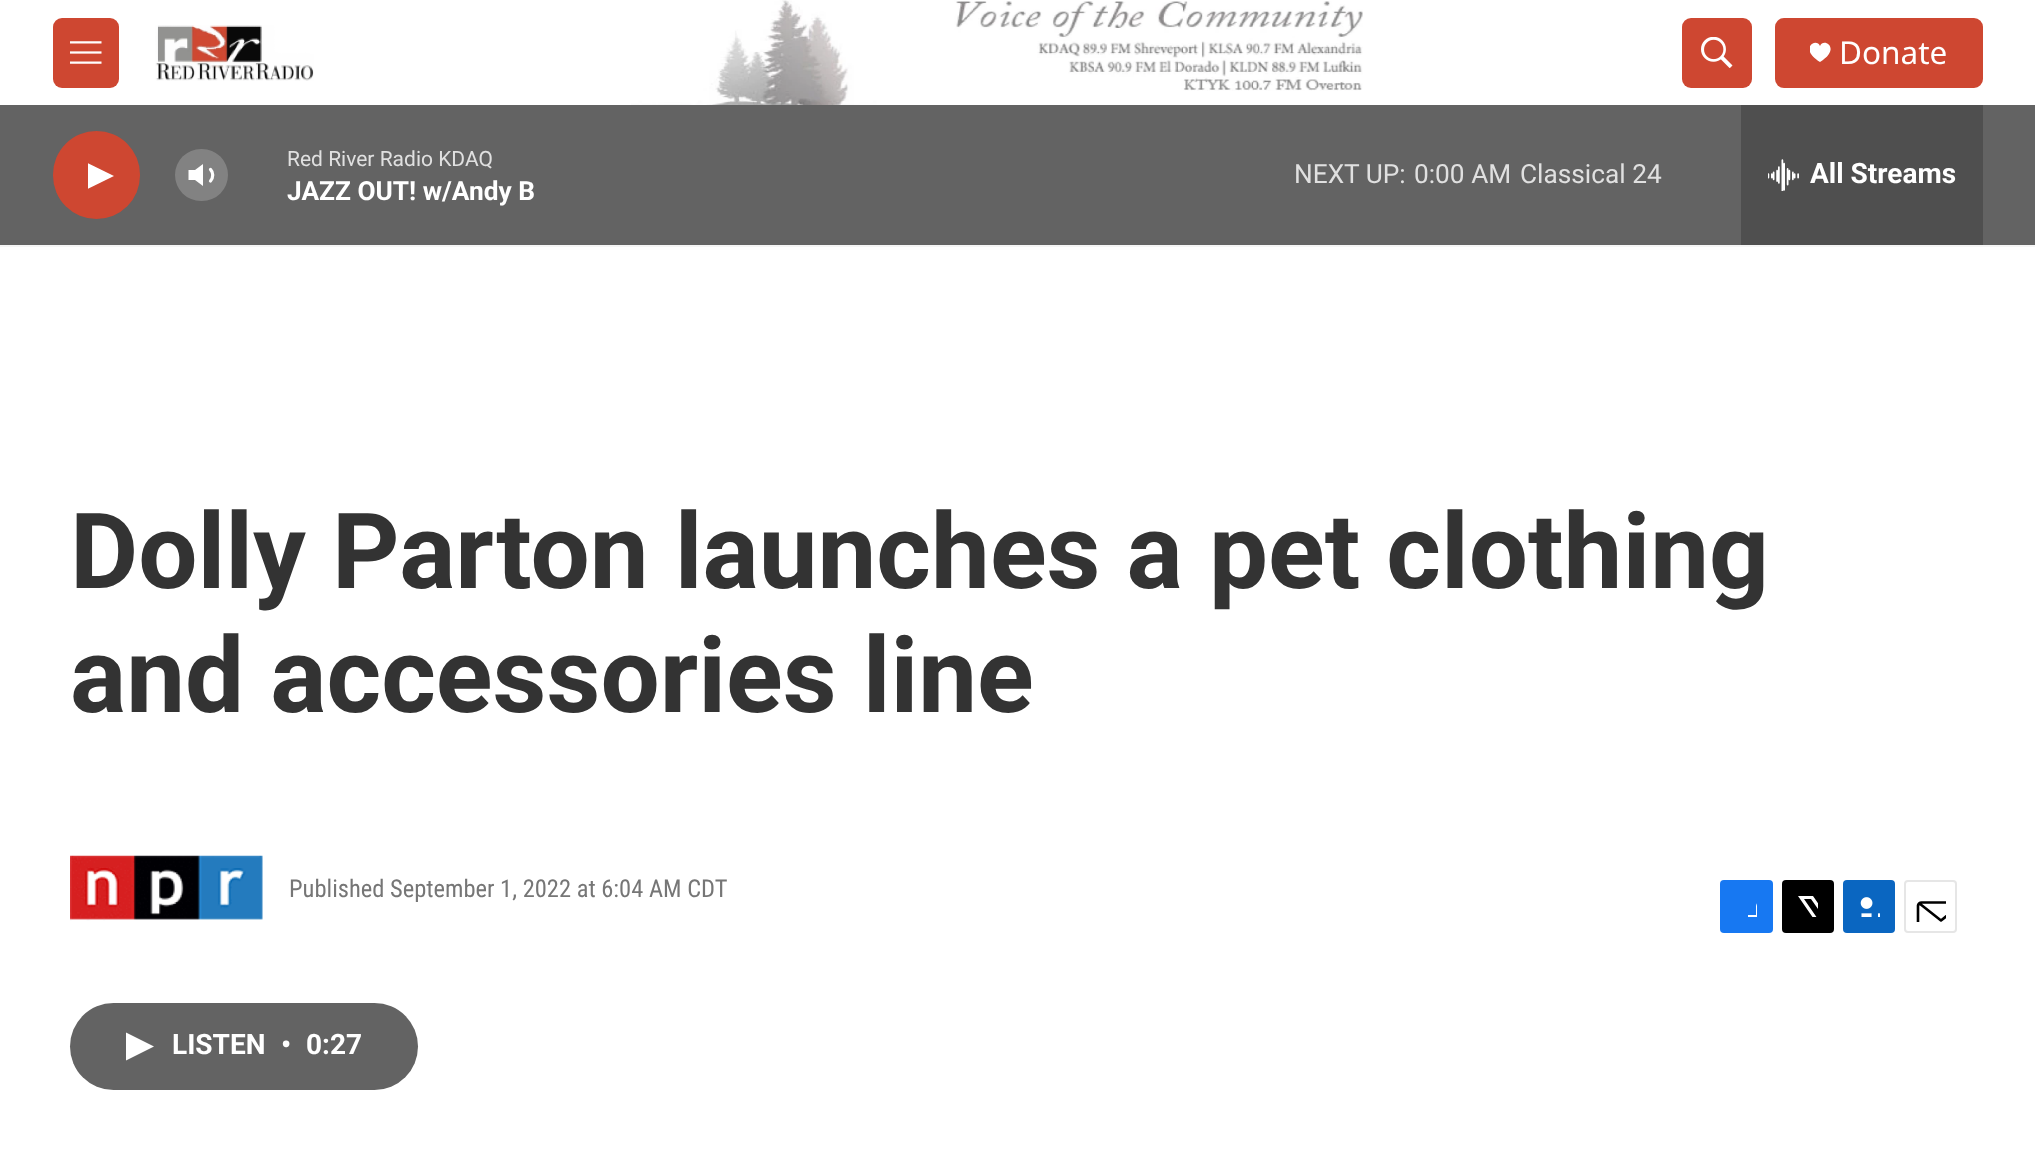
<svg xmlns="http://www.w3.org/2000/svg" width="2035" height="1159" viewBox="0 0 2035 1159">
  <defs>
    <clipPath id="clip1"><path d="M1810 42h21v21H1810z"/></clipPath>
    <clipPath id="clip2"><path d="M88 159h26v34H88z"/></clipPath>
    <clipPath id="clip3"><path d="M1736 896h21v21H1736z"/></clipPath>
    <clipPath id="clip4"><path d="M1797 896h21v21H1797z"/></clipPath>
    <clipPath id="clip5"><path d="M1915 891h31v31H1915z"/></clipPath>
  </defs>
  <rect width="100%" height="100%" fill="#fff"/>
  <path d="M0 245h2035v2H0z" fill="#f5f5f5"/>
  <image x="631" y="0" width="732" height="105" href="img/1.png"/>
  <rect x="53" y="18" width="66" height="70" rx="9" fill="#ce4731"/>
  <image x="70" y="41" width="32" height="23" href="img/2.png"/>
  <image x="155" y="25" width="159" height="56" href="img/3.png"/>
  <rect x="1682" y="18" width="70" height="70" rx="9" fill="#ce4731"/>
  <image x="1701" y="37" width="32" height="31" href="img/4.png"/>
  <rect x="1775" y="18" width="208" height="70" rx="9" fill="#ce4731"/>
  <g clip-path="url(#clip1)">
    <path d="M1820 46C1816.5 37 1798 48.5 1820 62C1842 48.5 1823.5 37 1820 46Z" fill="#fff"/>
  </g>
  <path d="M0 105h2035v140H0z" fill="#636363"/>
  <rect x="53" y="131" width="87" height="88" rx="43.5" fill="#ce4731"/>
  <g clip-path="url(#clip2)">
    <path d="M87.5 163L114 176L87.5 189Z" fill="#fff"/>
  </g>
  <path d="M203 164L195 170H188.5V180H195L203 186Z" fill="#fff"/>
  <path d="M210.5 169.5C213.5 172.5 213.5 177.5 210.5 181" fill="none" stroke="#fff" stroke-width="3.2" stroke-linecap="round" stroke-linejoin="round"/>
  <rect x="175" y="149" width="53" height="52" rx="26" fill="#ffffff33"/>
  <path d="M1741 105h242v140H1741z" fill="#4f4f4f"/>
  <image x="1768" y="159" width="31" height="32" href="img/5.png"/>
  <image x="70" y="855" width="193" height="66" href="img/6.png"/>
  <rect x="1720" y="880" width="53" height="53" rx="4" fill="#1778f2"/>
  <g clip-path="url(#clip3)">
    <path d="M1765 933H1756V924H1748V915H1756V906C1758 897.5 1766 896 1773 897V905C1763.5 905 1765 907.5 1765 915H1773L1772 924H1765Z" fill="#fff"/>
  </g>
  <rect x="1782" y="880" width="52" height="53" rx="4" fill="#000"/>
  <g clip-path="url(#clip4)">
    <path d="M1828 918L1834 926.5C1834 928 1834 930 1833.5 931L1811 899H1804L1827.5 933H1823.5L1820 928L1815.5 933H1811L1818 925L1798 896H1813L1826 915L1834 906V911Z" fill="#fff"/>
  </g>
  <rect x="1843" y="880" width="52" height="53" rx="4" fill="#0a66c1"/>
  <image x="1860" y="897" width="20" height="20" href="img/7.png"/>
  <rect x="1905" y="881" width="51" height="51" rx="3" fill="none" stroke="#e6e6e6" stroke-width="2"/>
  <g clip-path="url(#clip5)">
    <path d="M1963.5 929C1963.5 931 1962 932.5 1960 932.5H1921.5C1919.5 932.5 1918 931 1918 929V905.5C1918 904 1919.5 902.5 1921.5 902.5H1960C1962 902.5 1963.5 904 1963.5 905.5ZM1962 903.5L1941 920.5L1919.5 903.5" fill="none" stroke="#000" stroke-width="2.6" stroke-linecap="round" stroke-linejoin="round"/>
  </g>
  <rect x="70" y="1003" width="348" height="87" rx="43.5" fill="#636363"/>
  <path d="M126 1032.5L154 1046.5L126 1060.5Z" fill="#fff"/>
  <text x="1839" y="64" font-family="Noto Sans" font-size="31.5" fill="#fff">Donate</text>
  <text x="287" y="166" font-family="Roboto" font-size="21" fill="#e0e0e0">Red River Radio KDAQ</text>
  <text x="287" y="200" font-family="'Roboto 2'" font-size="26.25" font-weight="bold" fill="#fff">JAZZ OUT! w/Andy B</text>
  <g font-family="Roboto" font-size="26.25" fill="#e0e0e0">
    <text x="1294" y="183">NEXT UP:</text>
    <text x="1414" y="183">0:00 AM</text>
    <text x="1520" y="183">Classical 24</text>
  </g>
  <text x="1810" y="183" font-family="'Roboto 2'" font-size="28" font-weight="bold" fill="#fff">All Streams</text>
  <g font-family="Roboto" font-size="105" font-weight="bold" fill="#333">
    <text x="70" y="588">Dolly Parton launches a pet clothing</text>
    <text x="70" y="712">and accessories line</text>
  </g>
  <text x="289" y="897" font-family="Roboto Condensed" font-size="24.5" fill="#767676">Published September 1, 2022 at 6:04 AM CDT</text>
  <g font-family="'Roboto 2'" font-size="28" font-weight="bold" fill="#fff">
    <text x="172" y="1054">LISTEN</text>
    <text x="281" y="1054">•</text>
    <text x="306" y="1054">0:27</text>
  </g>
</svg>
